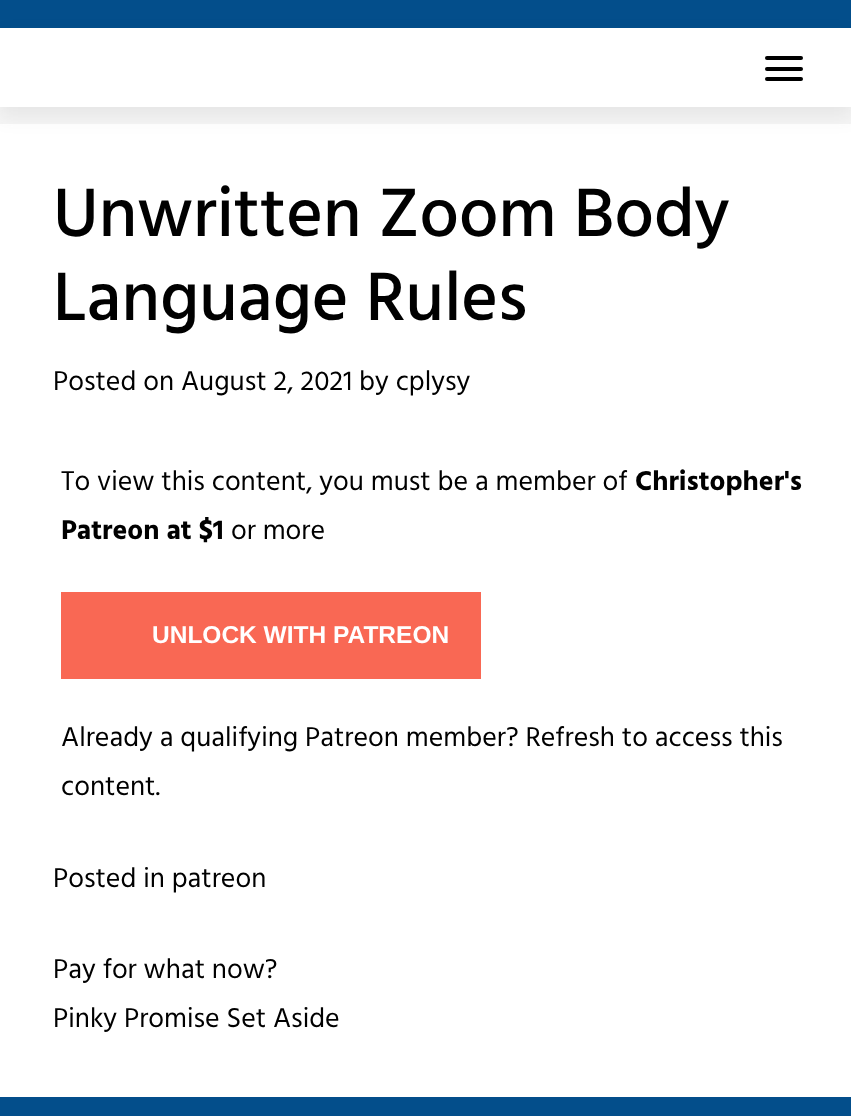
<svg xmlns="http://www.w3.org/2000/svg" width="851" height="1116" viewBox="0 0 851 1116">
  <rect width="100%" height="100%" fill="#f5f5f5"/>
  <path d="M0 0h851v28H0z" fill="#034e8b"/>
  <path d="M0 124h851v973H0z" fill="#fff"/>
  <path d="M0 37h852v79H0z" fill="#32323214" filter="blur(9.5px)"/>
  <path d="M0 28h851v79H0z" fill="#fff"/>
  <rect x="765" y="56" width="38" height="4" rx="2" fill="#000"/>
  <rect x="765" y="67" width="38" height="4" rx="2" fill="#000"/>
  <rect x="765" y="77" width="38" height="4" rx="2" fill="#000"/>
  <path d="M61 592h420v87H61z" fill="#f96854"/>
  <path d="M0 1097h851v19H0z" fill="#034e8b"/>
  <g font-family="Hind" font-size="70" font-weight="500" fill="#000">
    <text x="53" y="236">Unwritten Zoom Body</text>
    <text x="53" y="320">Language Rules</text>
  </g>
  <g font-family="Hind" font-size="28" fill="#000">
    <text x="53" y="390">Posted on August 2, 2021 by cplysy</text>
    <text x="61" y="490">To view this content, you must be a member of</text>
  </g>
  <g font-family="Hind" font-size="28" font-weight="bold" fill="#000">
    <text x="635" y="490">Christopher's</text>
    <text x="61" y="539">Patreon at $1</text>
  </g>
  <text x="231" y="539" font-family="Hind" font-size="28" fill="#000">or more</text>
  <text x="152" y="643" font-family="Liberation Sans" font-size="24.5" font-weight="bold" fill="#fff">UNLOCK WITH PATREON</text>
  <g font-family="Hind" font-size="28" fill="#000">
    <text x="61" y="746">Already a qualifying Patreon member? Refresh to access this</text>
    <text x="61" y="795">content.</text>
    <text x="53" y="887">Posted in patreon</text>
    <text x="53" y="978">Pay for what now?</text>
    <text x="53" y="1027">Pinky Promise Set Aside</text>
  </g>
</svg>
